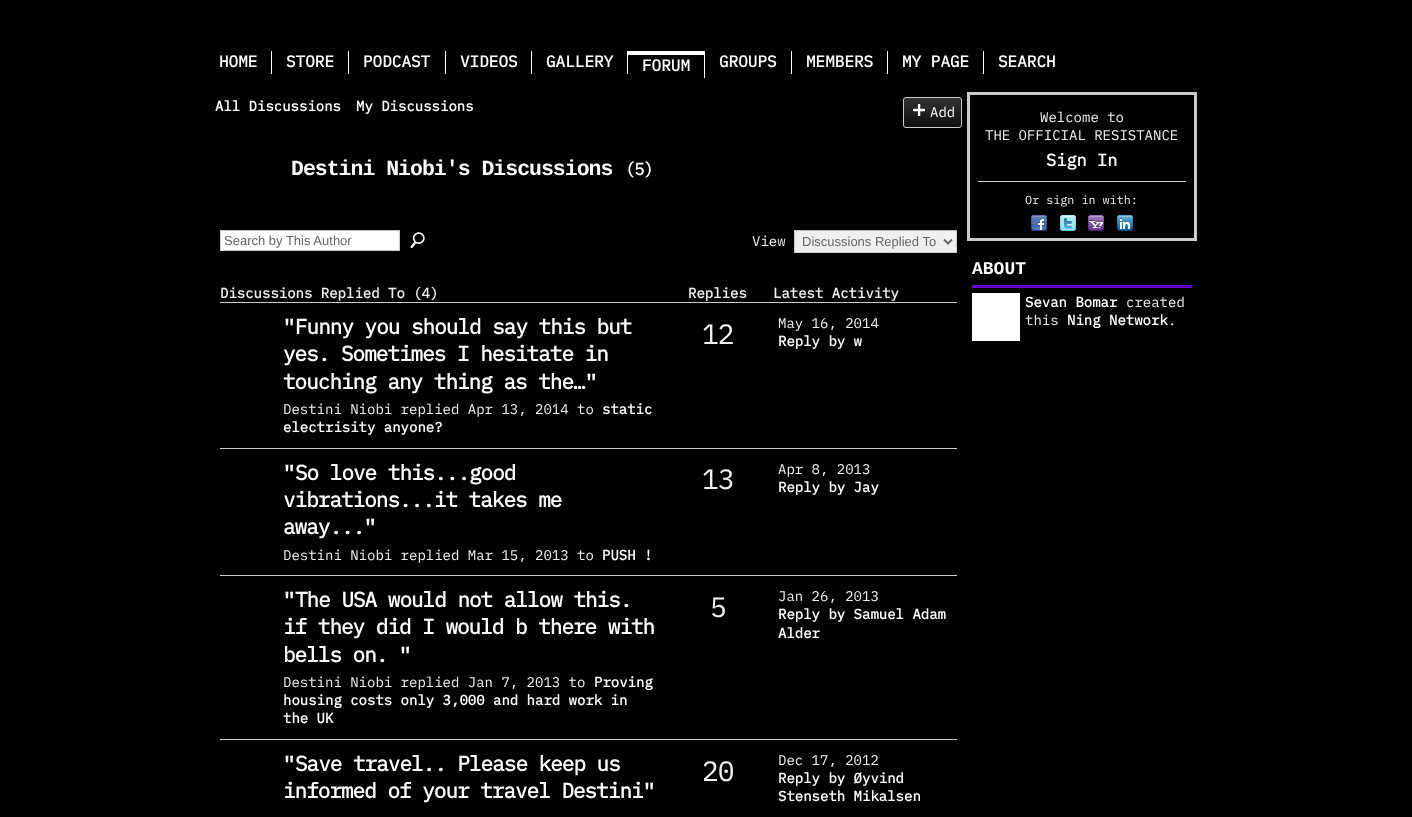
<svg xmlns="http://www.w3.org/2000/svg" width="1412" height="817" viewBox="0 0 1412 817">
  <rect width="100%" height="100%" fill="#000"/>
  <path d="M271 51h1v23H271z" fill="#fff"/>
  <path d="M348 51h1v23H348z" fill="#fff"/>
  <path d="M445 51h1v23H445z" fill="#fff"/>
  <path d="M531 51h1v23H531z" fill="#fff"/>
  <path d="M627 51h1v23H627z" fill="#fff"/>
  <path d="M628 51h77v4H628z" fill="#fff"/>
  <path d="M704 51h1v27H704z" fill="#fff"/>
  <path d="M791 51h1v23H791z" fill="#fff"/>
  <path d="M887 51h1v23H887z" fill="#fff"/>
  <path d="M983 51h1v23H983z" fill="#fff"/>
  <image x="903" y="98" width="59" height="30" href="img/1.png"/>
  <rect x="903.5" y="97.5" width="58" height="30" rx="2.5" fill="none" stroke="#cbcbcb"/>
  <image x="913" y="104" width="12" height="12" href="img/2.png"/>
  <path d="M221 231h178v19H221z" fill="#fff"/>
  <path d="M220 230h180v1H220z" fill="#bbb"/>
  <path d="M399 230h1v21H399z" fill="#ccc"/>
  <path d="M220 250h180v1H220z" fill="#ccc"/>
  <path d="M220 230h1v21H220z" fill="#ccc"/>
  <image x="410" y="232" width="15" height="16" href="img/3.png"/>
  <path d="M795 231h161v21H795z" fill="#efefef"/>
  <path d="M794 230h163v1H794z" fill="#bbb"/>
  <path d="M956 230h1v23H956z" fill="#ccc"/>
  <path d="M794 252h163v1H794z" fill="#ccc"/>
  <path d="M794 230h1v23H794z" fill="#ccc"/>
  <path d="M944 239.5L948 243.5L952 239.5" fill="none" stroke="#666" stroke-width="2"/>
  <path d="M220 302h737v1H220z" fill="#cbcbcb"/>
  <path d="M220 448h737v1H220z" fill="#cbcbcb"/>
  <path d="M220 575h737v1H220z" fill="#cbcbcb"/>
  <path d="M220 739h737v1H220z" fill="#cbcbcb"/>
  <path d="M968.5 93.5h227v146H968.5z" fill="none" stroke="#cbcbcb" stroke-width="3"/>
  <path d="M978 181h208v1H978z" fill="#cbcbcb"/>
  <image x="1031" y="215" width="16" height="16" href="img/4.png"/>
  <image x="1060" y="215" width="16" height="16" href="img/5.png"/>
  <image x="1088" y="215" width="16" height="16" href="img/6.png"/>
  <image x="1117" y="215" width="16" height="16" href="img/7.png"/>
  <path d="M972 285h220v3H972z" fill="#6500d0"/>
  <path d="M972 293h48v48H972z" fill="#fff"/>
  <g font-family="IBM Plex Mono" font-size="16" font-weight="bold" fill="#fff">
    <text x="219" y="67">HOME</text>
    <text x="286" y="67">STORE</text>
    <text x="363" y="67">PODCAST</text>
    <text x="460" y="67">VIDEOS</text>
    <text x="546" y="67">GALLERY</text>
    <text x="642" y="71">FORUM</text>
    <text x="719" y="67">GROUPS</text>
    <text x="806" y="67">MEMBERS</text>
    <text x="902" y="67">MY PAGE</text>
    <text x="998" y="67">SEARCH</text>
  </g>
  <g font-family="IBM Plex Mono" font-size="14" font-weight="bold" fill="#fff">
    <text x="215" y="111">All Discussions</text>
    <text x="356" y="111">My Discussions</text>
  </g>
  <text x="930" y="117" font-family="IBM Plex Mono" font-size="14" fill="#fff">Add</text>
  <text x="291" y="175" font-family="Liberation Mono" font-size="21.5" font-weight="bold" letter-spacing="-1" fill="#fff">Destini Niobi's Discussions</text>
  <text x="625" y="175" font-family="IBM Plex Mono" font-size="17" font-weight="bold" letter-spacing="-1" fill="#fff">(5)</text>
  <text x="224" y="245" font-family="Liberation Sans" font-size="13" fill="#666">Search by This Author</text>
  <text x="752" y="246" font-family="IBM Plex Mono" font-size="14" fill="#f0f0f0">View</text>
  <text x="802" y="246" font-family="Liberation Sans" font-size="13" fill="#666">Discussions Replied To</text>
  <g font-family="IBM Plex Mono" font-size="14" font-weight="bold" fill="#f0f0f0">
    <text x="220" y="298">Discussions Replied To (4)</text>
    <text x="688" y="298">Replies</text>
    <text x="773" y="298">Latest Activity</text>
  </g>
  <text x="283" y="334" font-family="Liberation Mono" font-size="21" font-weight="bold" letter-spacing="-1" fill="#fff">"</text>
  <g font-family="IBM Plex Mono" font-size="21" font-weight="bold" letter-spacing="-1" fill="#fff">
    <text x="295" y="334">Funny you should say this but</text>
    <text x="283" y="361">yes. Sometimes I hesitate in</text>
    <text x="283" y="389">touching any thing as the…</text>
  </g>
  <text x="585" y="389" font-family="Liberation Mono" font-size="21" font-weight="bold" letter-spacing="-1" fill="#fff">"</text>
  <text x="283" y="414" font-family="IBM Plex Mono" font-size="14" fill="#f0f0f0">Destini Niobi replied Apr 13, 2014 to</text>
  <g font-family="IBM Plex Mono" font-size="14" font-weight="bold" fill="#fff">
    <text x="602" y="414">static</text>
    <text x="283" y="432">electrisity anyone?</text>
  </g>
  <text x="702" y="344" font-family="IBM Plex Mono" font-size="28" letter-spacing="-1" fill="#f0f0f0">12</text>
  <text x="778" y="328" font-family="IBM Plex Mono" font-size="14" fill="#f0f0f0">May 16, 2014</text>
  <text x="778" y="346" font-family="IBM Plex Mono" font-size="14" font-weight="bold" fill="#fff">Reply by w</text>
  <text x="283" y="480" font-family="Liberation Mono" font-size="21" font-weight="bold" letter-spacing="-1" fill="#fff">"</text>
  <g font-family="IBM Plex Mono" font-size="21" font-weight="bold" letter-spacing="-1" fill="#fff">
    <text x="295" y="480">So love this...good</text>
    <text x="283" y="507">vibrations...it takes me</text>
    <text x="283" y="534">away...</text>
  </g>
  <text x="364" y="534" font-family="Liberation Mono" font-size="21" font-weight="bold" letter-spacing="-1" fill="#fff">"</text>
  <text x="283" y="560" font-family="IBM Plex Mono" font-size="14" fill="#f0f0f0">Destini Niobi replied Mar 15, 2013 to</text>
  <text x="602" y="560" font-family="IBM Plex Mono" font-size="14" font-weight="bold" fill="#fff">PUSH !</text>
  <text x="702" y="489" font-family="IBM Plex Mono" font-size="28" letter-spacing="-1" fill="#f0f0f0">13</text>
  <text x="778" y="474" font-family="IBM Plex Mono" font-size="14" fill="#f0f0f0">Apr 8, 2013</text>
  <text x="778" y="492" font-family="IBM Plex Mono" font-size="14" font-weight="bold" fill="#fff">Reply by Jay</text>
  <text x="283" y="607" font-family="Liberation Mono" font-size="21" font-weight="bold" letter-spacing="-1" fill="#fff">"</text>
  <g font-family="IBM Plex Mono" font-size="21" font-weight="bold" letter-spacing="-1" fill="#fff">
    <text x="295" y="607">The USA would not allow this.</text>
    <text x="283" y="634">if they did I would b there with</text>
    <text x="283" y="662">bells on.</text>
  </g>
  <text x="399" y="662" font-family="Liberation Mono" font-size="21" font-weight="bold" letter-spacing="-1" fill="#fff">"</text>
  <text x="283" y="687" font-family="IBM Plex Mono" font-size="14" fill="#f0f0f0">Destini Niobi replied Jan 7, 2013 to</text>
  <g font-family="IBM Plex Mono" font-size="14" font-weight="bold" fill="#fff">
    <text x="594" y="687">Proving</text>
    <text x="283" y="705">housing costs only 3,000 and hard work in</text>
    <text x="283" y="723">the UK</text>
  </g>
  <text x="710" y="617" font-family="IBM Plex Mono" font-size="28" letter-spacing="-1" fill="#f0f0f0">5</text>
  <text x="778" y="601" font-family="IBM Plex Mono" font-size="14" fill="#f0f0f0">Jan 26, 2013</text>
  <g font-family="IBM Plex Mono" font-size="14" font-weight="bold" fill="#fff">
    <text x="778" y="619">Reply by Samuel Adam</text>
    <text x="778" y="638">Alder</text>
  </g>
  <text x="283" y="771" font-family="Liberation Mono" font-size="21" font-weight="bold" letter-spacing="-1" fill="#fff">"</text>
  <g font-family="IBM Plex Mono" font-size="21" font-weight="bold" letter-spacing="-1" fill="#fff">
    <text x="295" y="771">Save travel.. Please keep us</text>
    <text x="283" y="798">informed of your travel Destini</text>
  </g>
  <text x="643" y="798" font-family="Liberation Mono" font-size="21" font-weight="bold" letter-spacing="-1" fill="#fff">"</text>
  <text x="702" y="781" font-family="IBM Plex Mono" font-size="28" letter-spacing="-1" fill="#f0f0f0">20</text>
  <text x="778" y="765" font-family="IBM Plex Mono" font-size="14" fill="#f0f0f0">Dec 17, 2012</text>
  <g font-family="IBM Plex Mono" font-size="14" font-weight="bold" fill="#fff">
    <text x="778" y="783">Reply by Øyvind</text>
    <text x="778" y="801">Stenseth Mikalsen</text>
  </g>
  <g font-family="IBM Plex Mono" font-size="14" fill="#f0f0f0">
    <text x="1040" y="122">Welcome to</text>
    <text x="985" y="140">THE OFFICIAL RESISTANCE</text>
  </g>
  <text x="1046" y="166" font-family="IBM Plex Mono" font-size="17" font-weight="bold" fill="#fff">Sign In</text>
  <text x="1025" y="204" font-family="IBM Plex Mono" font-size="11.75" fill="#f0f0f0">Or sign in with:</text>
  <text x="972" y="274" font-family="Liberation Mono" font-size="18" font-weight="bold" fill="#fff">ABOUT</text>
  <text x="1025" y="307" font-family="IBM Plex Mono" font-size="14" font-weight="bold" fill="#fff">Sevan Bomar</text>
  <g font-family="IBM Plex Mono" font-size="14" fill="#f0f0f0">
    <text x="1126" y="307">created</text>
    <text x="1025" y="325">this</text>
  </g>
  <text x="1067" y="325" font-family="IBM Plex Mono" font-size="14" font-weight="bold" fill="#fff">Ning Network</text>
  <text x="1168" y="325" font-family="IBM Plex Mono" font-size="14" fill="#f0f0f0">.</text>
</svg>
